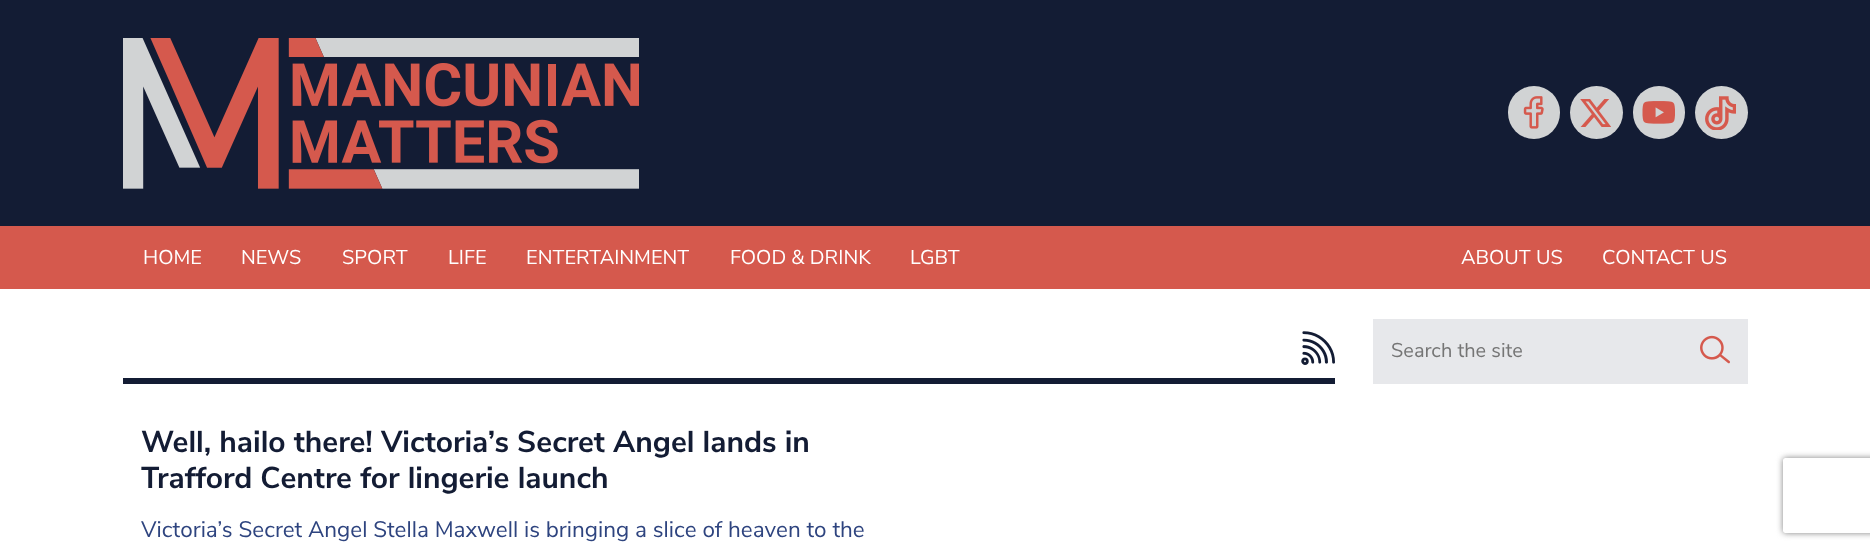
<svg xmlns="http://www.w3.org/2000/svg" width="1870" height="549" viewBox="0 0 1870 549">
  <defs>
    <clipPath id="clip1"><path d="M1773 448H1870V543H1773ZM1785.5 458H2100.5C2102 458 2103 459 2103 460.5V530.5C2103 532 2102 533 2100.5 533H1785.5C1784 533 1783 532 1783 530.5V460.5C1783 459 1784 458 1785.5 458Z" clip-rule="evenodd"/></clipPath>
  </defs>
  <rect width="100%" height="100%" fill="#fff"/>
  <path d="M0 0h1870v226H0z" fill="#131c34"/>
  <image x="123" y="38" width="516" height="151" href="img/1.png"/>
  <rect x="1508" y="86" width="52" height="53" rx="26" fill="#d1d3d4"/>
  <image x="1523" y="96" width="21" height="33" href="img/2.png"/>
  <circle cx="1596.5" cy="112.5" r="26.5" fill="#d1d3d4"/>
  <image x="1580" y="99" width="31" height="28" href="img/3.png"/>
  <rect x="1633" y="86" width="52" height="53" rx="26" fill="#d1d3d4"/>
  <image x="1642" y="101" width="33" height="23" href="img/4.png"/>
  <circle cx="1721.5" cy="112.5" r="26.5" fill="#d1d3d4"/>
  <image x="1705" y="96" width="31" height="34" href="img/5.png"/>
  <path d="M0 226h1870v63H0z" fill="#d5594d"/>
  <path d="M1373 319h375v65H1373z" fill="#e7e8eb"/>
  <image x="1700" y="335" width="30" height="29" href="img/6.png"/>
  <path d="M123 378h1212v6H123z" fill="#131c34"/>
  <image x="1301" y="331" width="34" height="34" href="img/7.png"/>
  <g clip-path="url(#clip1)">
    <rect x="1783" y="458" width="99" height="75" rx="2.5" fill="#808080" filter="blur(3px)"/>
  </g>
  <g font-family="Nunito Sans" font-size="20" fill="#fff">
    <text x="143" y="264">HOME</text>
    <text x="241" y="264">NEWS</text>
    <text x="342" y="264">SPORT</text>
    <text x="448" y="264">LIFE</text>
    <text x="526" y="264">ENTERTAINMENT</text>
    <text x="730" y="264">FOOD &amp; DRINK</text>
    <text x="910" y="264">LGBT</text>
    <text x="1461" y="264">ABOUT US</text>
    <text x="1602" y="264">CONTACT US</text>
  </g>
  <text x="1391" y="357" font-family="Nunito Sans" font-size="20" fill="#757575">Search the site</text>
  <g font-family="Nunito Sans" font-size="30" font-weight="bold" fill="#131c34">
    <text x="141" y="452">Well, hailo there! Victoria’s Secret Angel lands in</text>
    <text x="141" y="488">Trafford Centre for lingerie launch</text>
  </g>
  <text x="141" y="537" font-family="Nunito Sans" font-size="22.5" fill="#2e447f">Victoria’s Secret Angel Stella Maxwell is bringing a slice of heaven to the</text>
</svg>
